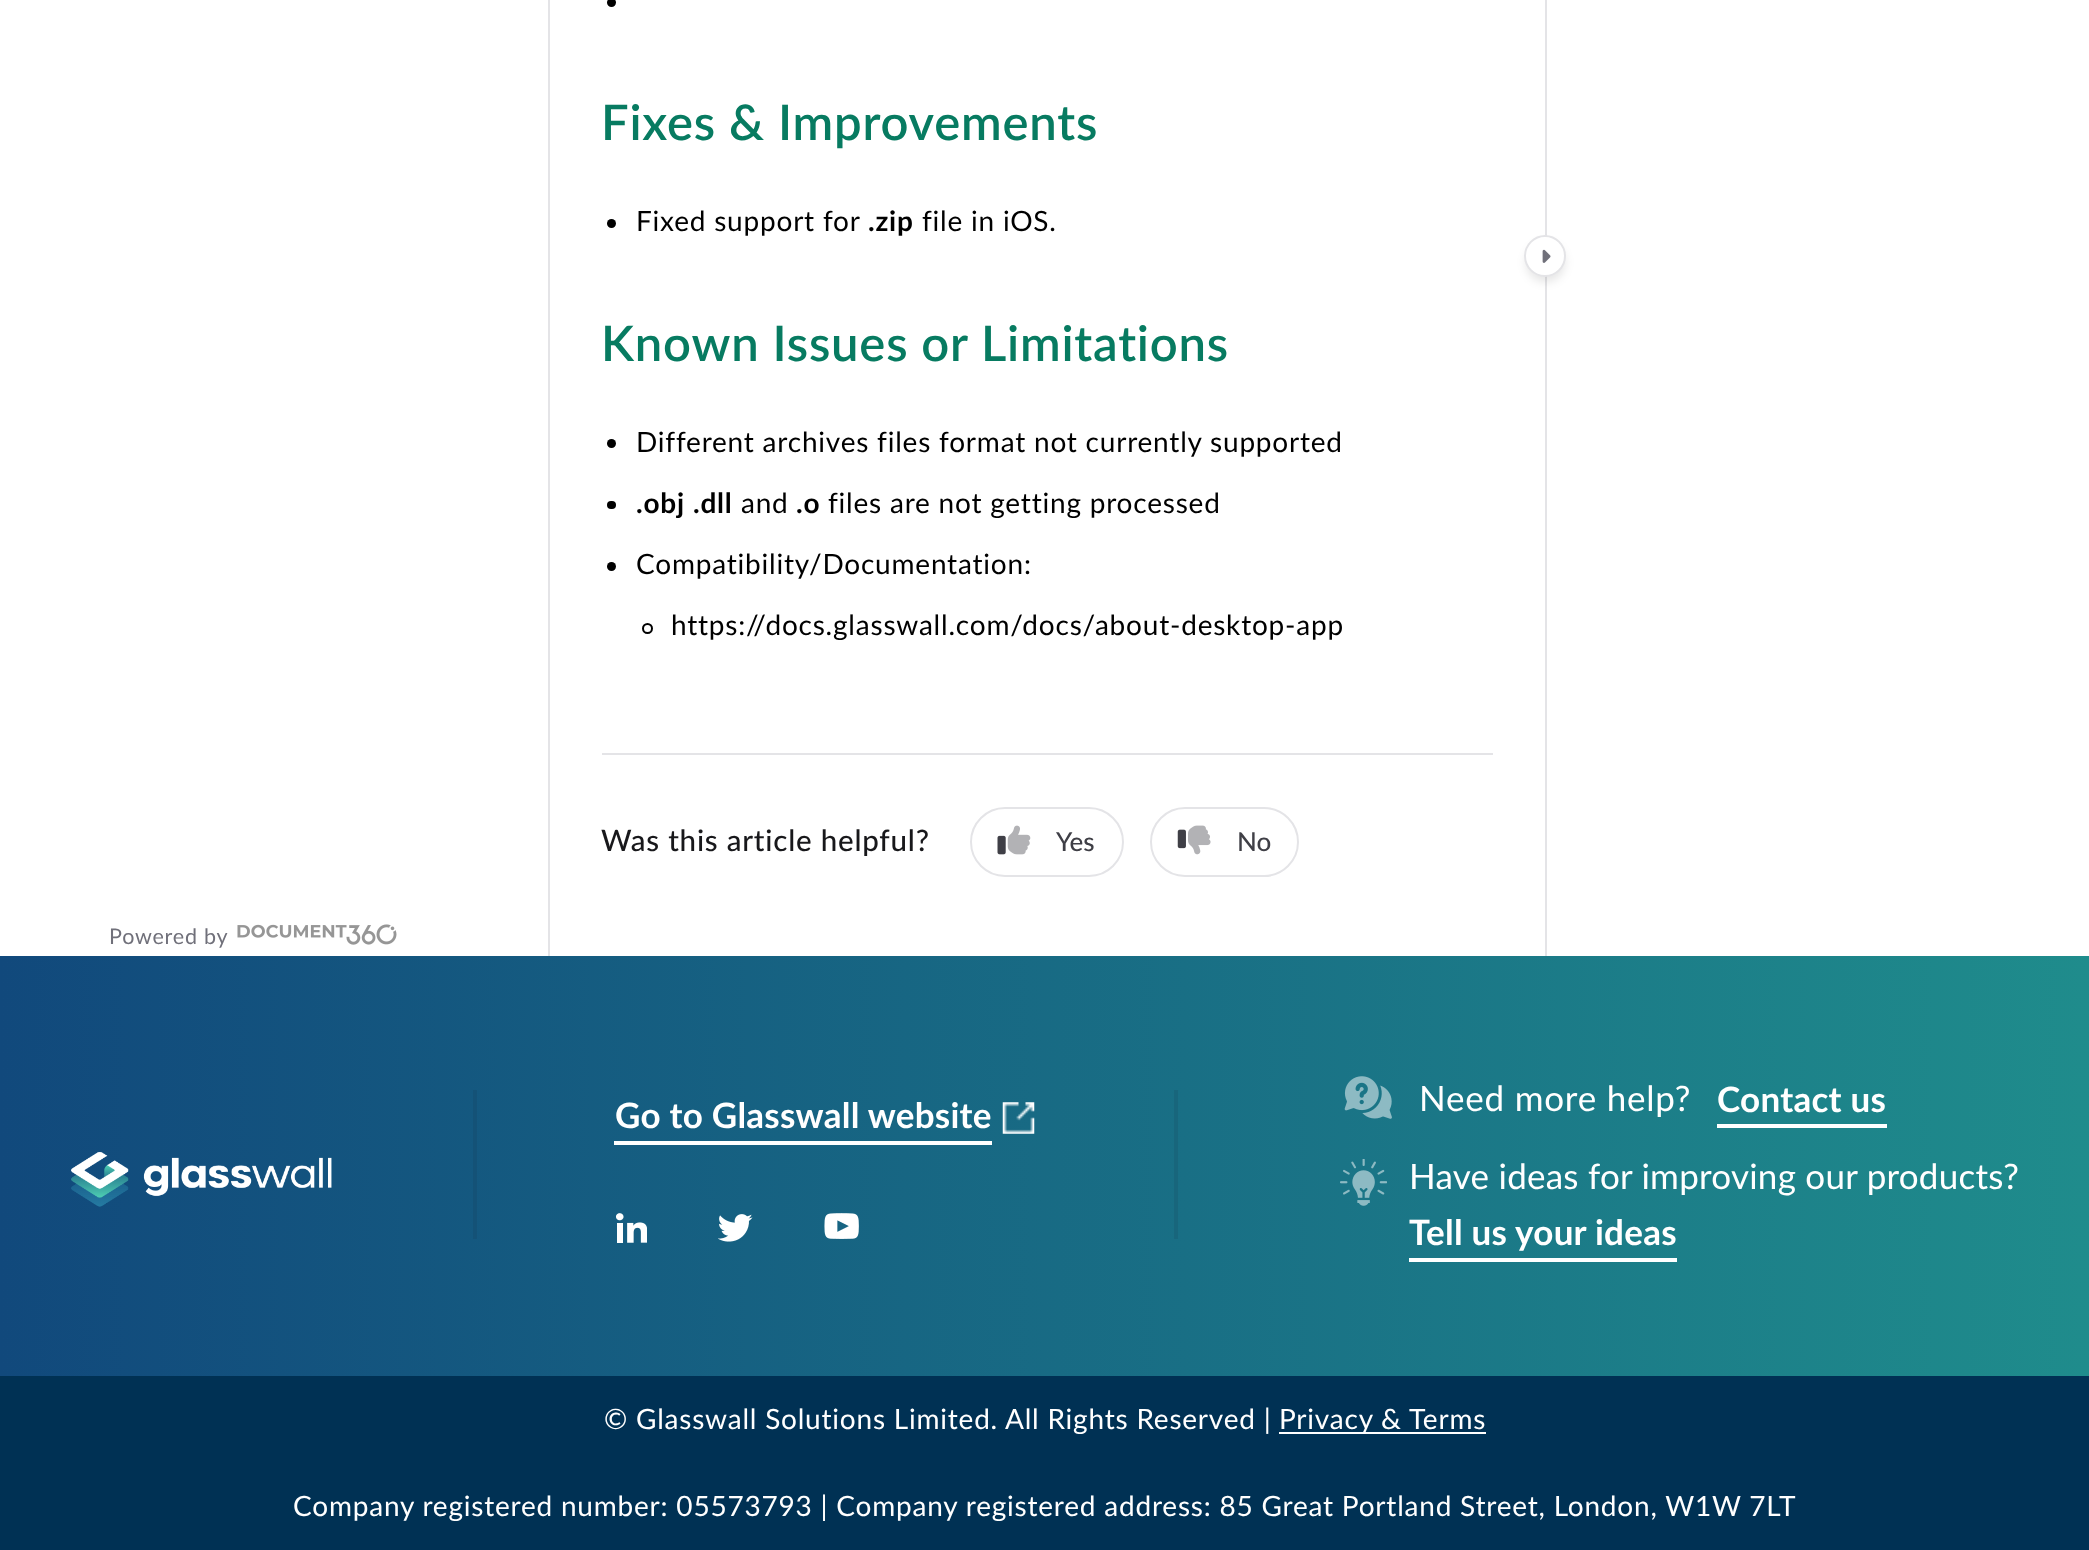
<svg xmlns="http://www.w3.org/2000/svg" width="2089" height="1550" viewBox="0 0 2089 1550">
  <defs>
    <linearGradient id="g1" gradientUnits="userSpaceOnUse" x1="0" y1="1166" x2="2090" y2="1166"><stop offset="0" stop-color="#11497c"/><stop offset="1" stop-color="#1f8c8c"/></linearGradient>
  </defs>
  <rect width="100%" height="100%" fill="#fff"/>
  <circle cx="611.5" cy="2.5" r="4.5" fill="#000"/>
  <circle cx="611.5" cy="223.5" r="4.5" fill="#000"/>
  <circle cx="611.5" cy="443.5" r="4.5" fill="#000"/>
  <rect x="607" y="501" width="9" height="8" rx="4" fill="#000"/>
  <circle cx="611.5" cy="566.5" r="4.5" fill="#000"/>
  <circle cx="647.5" cy="628.5" r="4.5" fill="none" stroke="#000" stroke-width="2"/>
  <path d="M602 753h891v2H602z" fill="#e4e4e7"/>
  <rect x="971" y="808" width="152" height="68" rx="34" fill="none" stroke="#e4e4e7" stroke-width="2"/>
  <image x="997" y="835" width="9" height="20" href="img/1.png"/>
  <image x="1007" y="825" width="24" height="30" href="img/2.png"/>
  <rect x="1151" y="808" width="147" height="68" rx="34" fill="none" stroke="#e4e4e7" stroke-width="2"/>
  <image x="1177" y="829" width="9" height="20" href="img/3.png"/>
  <image x="1188" y="825" width="23" height="30" href="img/4.png"/>
  <path d="M1545 0h2v956H1545z" fill="#e4e4e7"/>
  <rect x="1526" y="243" width="39" height="39" rx="19.5" fill="#0000001a" filter="blur(5px)"/>
  <circle cx="1545" cy="256" r="20" fill="#fff" stroke="#e4e4e7" stroke-width="2"/>
  <image x="1542" y="249" width="9" height="14" href="img/5.png"/>
  <path d="M548 0h2v956H548z" fill="#e4e4e7"/>
  <image x="237" y="924" width="160" height="21" href="img/6.png"/>
  <path d="M0 956h2089v420H0z" fill="url(#g1)"/>
  <path d="M473 1090h4v149H473z" fill="#145277"/>
  <path d="M614 1141h378v4H614z" fill="#fff"/>
  <image x="1002" y="1102" width="33" height="32" href="img/7.png"/>
  <image x="616" y="1213" width="31" height="30" href="img/8.png"/>
  <image x="718" y="1214" width="35" height="28" href="img/9.png"/>
  <image x="824" y="1213" width="35" height="26" href="img/10.png"/>
  <path d="M1174 1090h4v149H1174z" fill="#18667c"/>
  <image x="1344" y="1076" width="48" height="43" href="img/11.png"/>
  <path d="M1717 1124h170v4H1717z" fill="#fff"/>
  <image x="1340" y="1159" width="47" height="47" href="img/12.png"/>
  <path d="M1409 1258h268v4H1409z" fill="#fff"/>
  <image x="71" y="1152" width="261" height="55" href="img/13.png"/>
  <path d="M0 1376h2089v174H0z" fill="#003154"/>
  <path d="M1279 1432h207v2H1279z" fill="#fff"/>
  <text x="601" y="140" font-family="Lato" font-size="49" font-weight="600" letter-spacing="0.79" fill="#077b61">Fixes &amp; Improvements</text>
  <text x="636" y="231" font-family="Lato" font-size="28" letter-spacing="0.79" fill="#000">Fixed support for</text>
  <text x="868" y="231" font-family="Lato" font-size="28" font-weight="bold" letter-spacing="0.79" fill="#000">.zip</text>
  <text x="922" y="231" font-family="Lato" font-size="28" letter-spacing="0.79" fill="#000">file in iOS.</text>
  <text x="601" y="361" font-family="Lato" font-size="49" font-weight="600" letter-spacing="0.79" fill="#077b61">Known Issues or Limitations</text>
  <text x="636" y="452" font-family="Lato" font-size="28" letter-spacing="0.79" fill="#000">Different archives files format not currently supported</text>
  <g font-family="Lato" font-size="28" font-weight="bold" letter-spacing="0.79" fill="#000">
    <text x="636" y="513">.obj</text>
    <text x="693" y="513">.dll</text>
  </g>
  <text x="741" y="513" font-family="Lato" font-size="28" letter-spacing="0.79" fill="#000">and</text>
  <text x="796" y="513" font-family="Lato" font-size="28" font-weight="bold" letter-spacing="0.79" fill="#000">.o</text>
  <g font-family="Lato" font-size="28" letter-spacing="0.79" fill="#000">
    <text x="828" y="513">files are not getting processed</text>
    <text x="636" y="574">Compatibility/Documentation:</text>
    <text x="671" y="635">https://docs.glasswall.com/docs/about-desktop-app</text>
  </g>
  <text x="601" y="851" font-family="Lato" font-size="29.5" font-weight="500" letter-spacing="0.79" fill="#18181b">Was this article helpful?</text>
  <g font-family="Lato" font-size="26" font-weight="500" fill="#3f3f46">
    <text x="1056" y="851">Yes</text>
    <text x="1237" y="851">No</text>
  </g>
  <text x="109" y="944" font-family="Lato" font-size="21.5" letter-spacing="0.79" fill="#70707a">Powered by</text>
  <text x="615" y="1128" font-family="Lato" font-size="35" font-weight="bold" letter-spacing="0.25" fill="#fff">Go to Glasswall website</text>
  <text x="1419" y="1111" font-family="Lato" font-size="35" letter-spacing="0.79" fill="#fff">Need more help?</text>
  <text x="1717" y="1112" font-family="Lato" font-size="35" font-weight="bold" letter-spacing="0.25" fill="#fff">Contact us</text>
  <text x="1409" y="1189" font-family="Lato" font-size="35" letter-spacing="0.25" fill="#fff">Have ideas for improving our products?</text>
  <text x="1409" y="1245" font-family="Lato" font-size="35" font-weight="bold" letter-spacing="0.25" fill="#fff">Tell us your ideas</text>
  <g font-family="Lato" font-size="28" letter-spacing="0.79" fill="#fff">
    <text x="604" y="1429">© Glasswall Solutions Limited. All Rights Reserved |</text>
    <text x="1279" y="1429">Privacy &amp; Terms</text>
    <text x="293" y="1516">Company registered number: 05573793 | Company registered address: 85 Great Portland Street, London, W1W 7LT</text>
  </g>
</svg>
